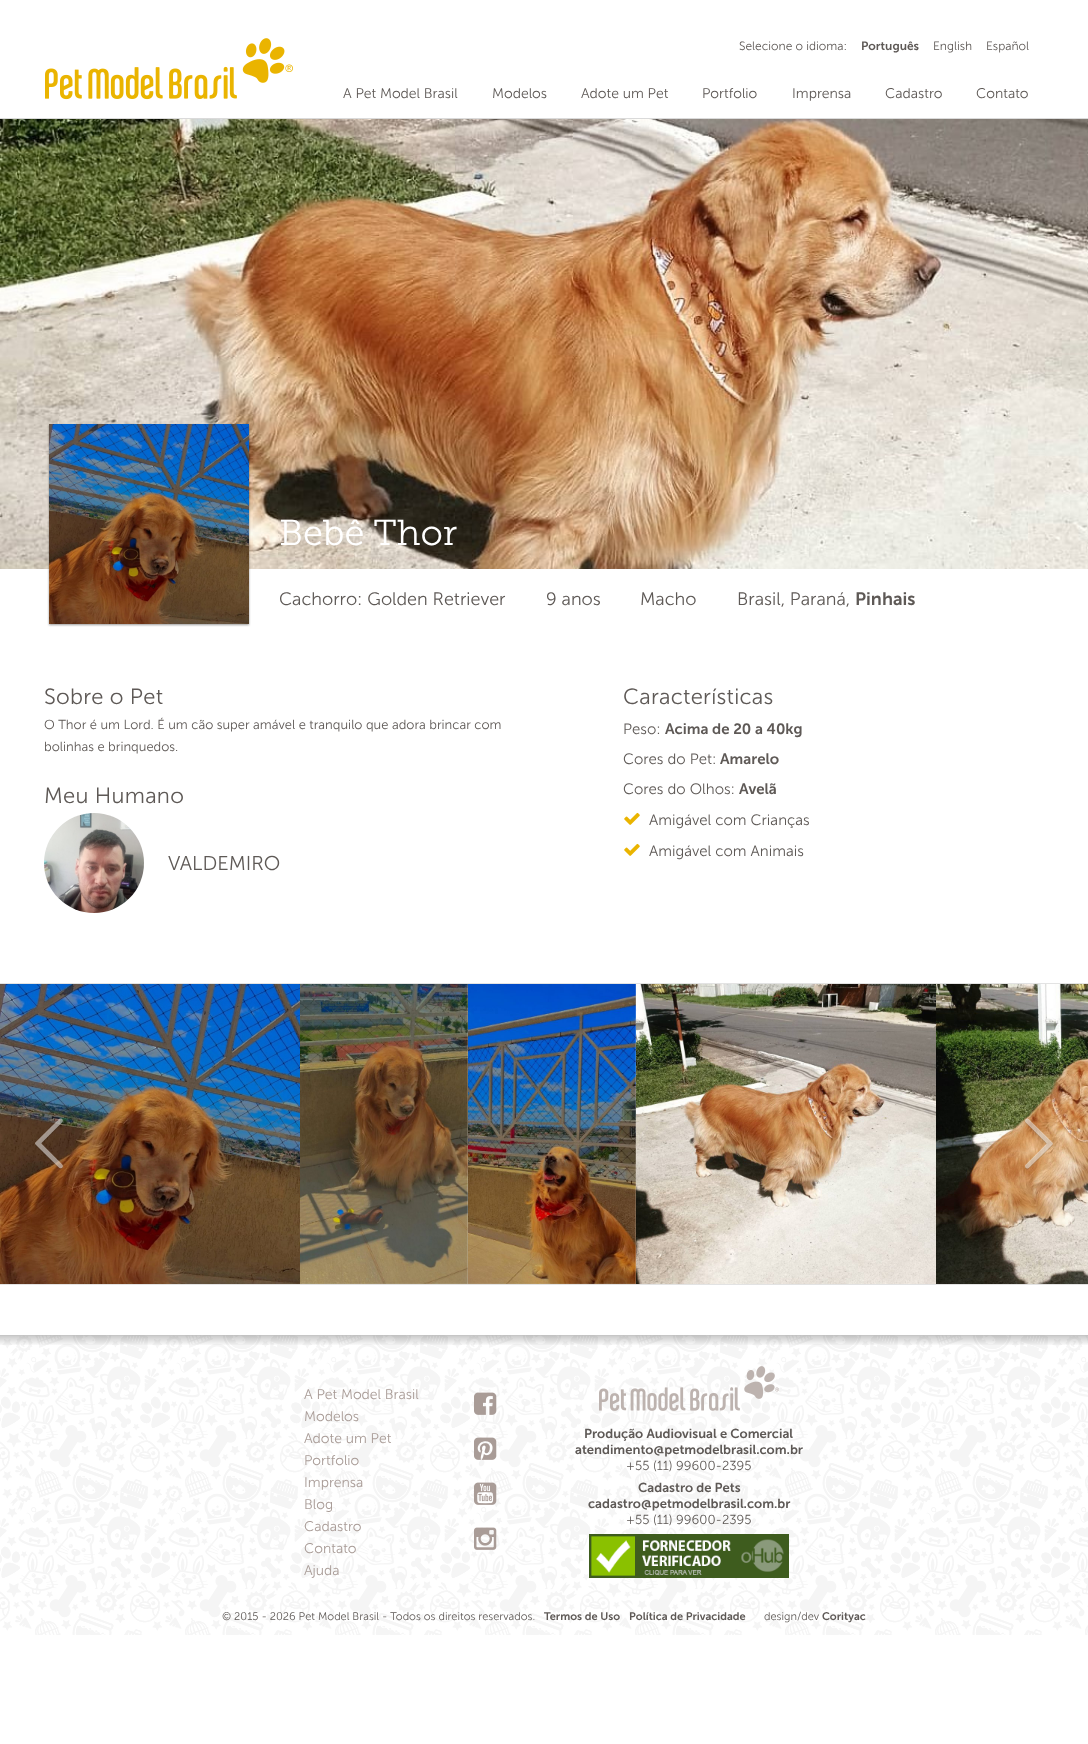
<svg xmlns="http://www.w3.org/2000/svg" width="1088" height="1744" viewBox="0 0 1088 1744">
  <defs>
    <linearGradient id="g1" gradientUnits="userSpaceOnUse" x1="544" y1="1336" x2="544" y2="1346"><stop offset="0" stop-color="#000" stop-opacity="0.2"/><stop offset="1" stop-color="#000" stop-opacity="0"/></linearGradient>
  </defs>
  <rect width="100%" height="100%" fill="#fff"/>
  <path d="M0 118h1088v1H0z" fill="#dadada"/>
  <image x="45" y="38" width="248" height="62" href="img/1.png"/>
  <image x="0" y="119" width="1088" height="450" href="img/2.png"/>
  <path d="M49 425h200v200H49z" fill="#00000066" filter="blur(1px)"/>
  <image x="49" y="424" width="200" height="200" href="img/3.png"/>
  <image x="44" y="813" width="100" height="100" href="img/4.png"/>
  <image x="624" y="812" width="16" height="13" href="img/5.png"/>
  <image x="624" y="843" width="16" height="13" href="img/5.png"/>
  <path d="M0 983h1088v1H0z" fill="#e3e3e3"/>
  <path d="M0 1284h1088v1H0z" fill="#e3e3e3"/>
  <image x="0" y="984" width="300" height="300" href="img/6.png"/>
  <image x="300" y="984" width="168" height="300" href="img/7.png"/>
  <image x="468" y="984" width="168" height="300" href="img/8.png"/>
  <image x="636" y="984" width="300" height="300" href="img/9.png"/>
  <image x="936" y="984" width="152" height="300" href="img/10.png"/>
  <image x="35" y="1118" width="28" height="52" href="img/11.png"/>
  <image x="1025" y="1118" width="28" height="52" href="img/12.png"/>
  <image x="0" y="1335" width="1088" height="300" href="img/13.png"/>
  <path d="M0 1335h1088v1H0z" fill="#9999998f"/>
  <path d="M0 1336h1088v9H0z" fill="url(#g1)"/>
  <image x="474" y="1392" width="23" height="23" href="img/14.png"/>
  <image x="474" y="1437" width="23" height="23" href="img/15.png"/>
  <image x="474" y="1482" width="23" height="23" href="img/16.png"/>
  <image x="474" y="1527" width="23" height="23" href="img/17.png"/>
  <image x="599" y="1366" width="180" height="45" href="img/18.png"/>
  <image x="589" y="1534" width="200" height="44" href="img/19.png"/>
  <text x="739" y="50" font-family="Museo Sans" font-size="12" font-weight="300" fill="#5e5956">Selecione o idioma:</text>
  <text x="861" y="50" font-family="Museo Sans" font-size="12" font-weight="600" fill="#5e5956">Português</text>
  <g font-family="Museo Sans" font-size="12" font-weight="300" fill="#5e5956">
    <text x="933" y="50">English</text>
    <text x="986" y="50">Español</text>
  </g>
  <g font-family="Museo Sans" font-size="14" font-weight="300" fill="#5e5956">
    <text x="343" y="98">A Pet Model Brasil</text>
    <text x="492" y="98">Modelos</text>
    <text x="581" y="98">Adote um Pet</text>
    <text x="702" y="98">Portfolio</text>
    <text x="792" y="98">Imprensa</text>
    <text x="885" y="98">Cadastro</text>
    <text x="976" y="98">Contato</text>
  </g>
  <text x="279" y="545" font-family="Museo Slab" font-size="36" font-weight="300" fill="#fff">Bebê Thor</text>
  <g font-family="Museo Sans" font-size="18" font-weight="300" fill="#5e5956">
    <text x="279" y="605">Cachorro: Golden Retriever</text>
    <text x="546" y="605">9 anos</text>
    <text x="640" y="605">Macho</text>
    <text x="737" y="605">Brasil, Paraná,</text>
  </g>
  <text x="855" y="605" font-family="Museo Sans" font-size="18" font-weight="600" fill="#5e5956">Pinhais</text>
  <text x="44" y="704" font-family="Museo Sans" font-size="22" font-weight="300" letter-spacing="0.25" fill="#5e5956">Sobre o Pet</text>
  <g font-family="Museo Sans" font-size="13" font-weight="300" fill="#5e5956">
    <text x="44" y="729">O Thor é um Lord. É um cão super amável e tranquilo que adora brincar com</text>
    <text x="44" y="751">bolinhas e brinquedos.</text>
  </g>
  <text x="44" y="803" font-family="Museo Sans" font-size="22" font-weight="300" letter-spacing="0.25" fill="#5e5956">Meu Humano</text>
  <text x="168" y="870" font-family="Museo Sans" font-size="20" font-weight="300" fill="#5e5956">VALDEMIRO</text>
  <text x="623" y="704" font-family="Museo Sans" font-size="22" font-weight="300" letter-spacing="0.25" fill="#5e5956">Características</text>
  <text x="623" y="734" font-family="Museo Sans" font-size="15" font-weight="300" fill="#5e5956">Peso:</text>
  <text x="665" y="734" font-family="Museo Sans" font-size="15" font-weight="600" fill="#5e5956">Acima de 20 a 40kg</text>
  <text x="623" y="764" font-family="Museo Sans" font-size="15" font-weight="300" fill="#5e5956">Cores do Pet:</text>
  <text x="720" y="764" font-family="Museo Sans" font-size="15" font-weight="600" fill="#5e5956">Amarelo</text>
  <text x="623" y="794" font-family="Museo Sans" font-size="15" font-weight="300" fill="#5e5956">Cores do Olhos:</text>
  <text x="739" y="794" font-family="Museo Sans" font-size="15" font-weight="600" fill="#5e5956">Avelã</text>
  <g font-family="Museo Sans" font-size="15" font-weight="300" fill="#5e5956">
    <text x="649" y="825">Amigável com Crianças</text>
    <text x="649" y="856">Amigável com Animais</text>
  </g>
  <g font-family="Museo Sans" font-size="14" font-weight="300" fill="#a99c97">
    <text x="304" y="1399">A Pet Model Brasil</text>
    <text x="304" y="1421">Modelos</text>
    <text x="304" y="1443">Adote um Pet</text>
    <text x="304" y="1465">Portfolio</text>
    <text x="304" y="1487">Imprensa</text>
    <text x="304" y="1509">Blog</text>
    <text x="304" y="1531">Cadastro</text>
    <text x="304" y="1553">Contato</text>
    <text x="304" y="1575">Ajuda</text>
  </g>
  <g font-family="Museo Sans" font-size="13" font-weight="600" fill="#5e5956">
    <text x="584" y="1438">Produção Audiovisual e Comercial</text>
    <text x="575" y="1454">atendimento@petmodelbrasil.com.br</text>
  </g>
  <text x="626" y="1470" font-family="Museo Sans" font-size="13" font-weight="300" fill="#5e5956">+55 (11) 99600-2395</text>
  <g font-family="Museo Sans" font-size="13" font-weight="600" fill="#5e5956">
    <text x="638" y="1492">Cadastro de Pets</text>
    <text x="588" y="1508">cadastro@petmodelbrasil.com.br</text>
  </g>
  <text x="626" y="1524" font-family="Museo Sans" font-size="13" font-weight="300" fill="#5e5956">+55 (11) 99600-2395</text>
  <text x="222" y="1620" font-family="Museo Sans" font-size="11" font-weight="300" fill="#5e5956">© 2015 - 2026 Pet Model Brasil - Todos os direitos reservados.</text>
  <g font-family="Museo Sans" font-size="11" font-weight="600" fill="#5e5956">
    <text x="544" y="1620">Termos de Uso</text>
    <text x="629" y="1620">Política de Privacidade</text>
  </g>
  <text x="764" y="1620" font-family="Museo Sans" font-size="11" font-weight="300" fill="#5e5956">design/dev</text>
  <text x="822" y="1620" font-family="Museo Sans" font-size="11" font-weight="600" fill="#5e5956">Corityac</text>
</svg>
